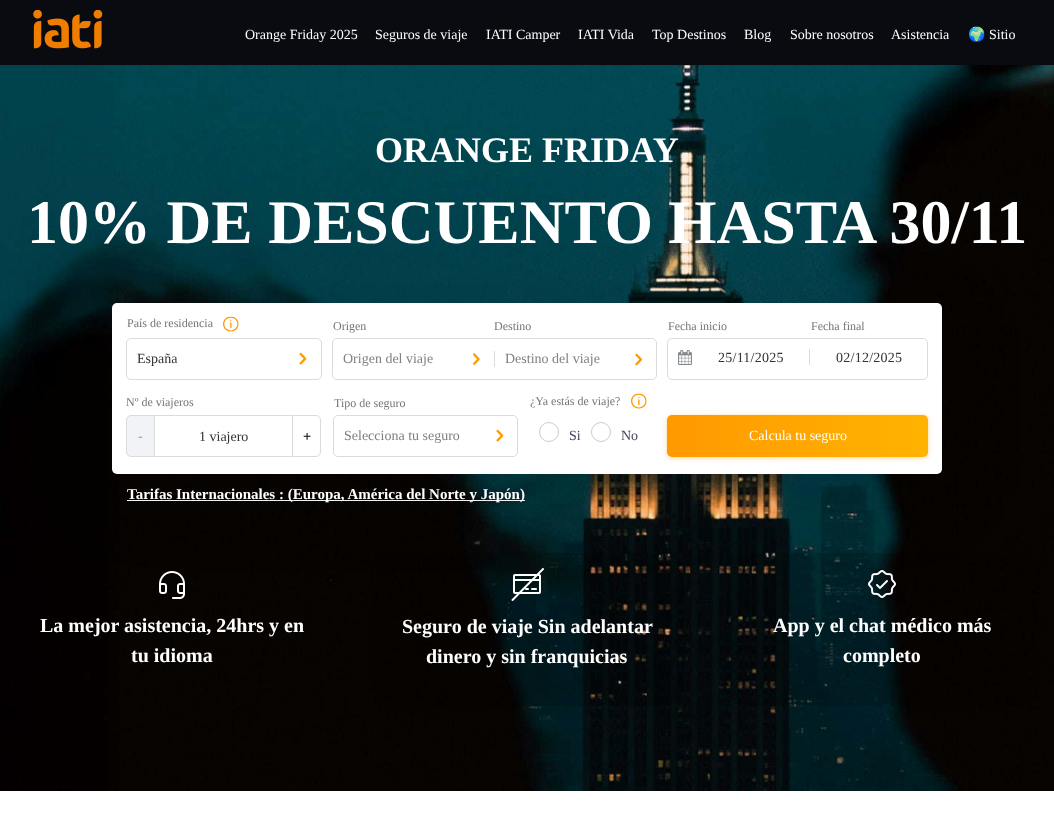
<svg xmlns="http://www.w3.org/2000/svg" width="1054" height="824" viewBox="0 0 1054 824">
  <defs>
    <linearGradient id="g1" gradientUnits="userSpaceOnUse" x1="667" y1="436" x2="928" y2="436"><stop offset="0" stop-color="#f90"/><stop offset="1" stop-color="#ffb300"/></linearGradient>
  </defs>
  <rect width="100%" height="100%" fill="#fff"/>
  <path d="M0 0h1054v65H0z" fill="#090b11"/>
  <image x="33" y="10" width="70" height="39" href="img/1.png"/>
  <image x="0" y="65" width="1054" height="726" href="img/2.png"/>
  <path d="M127 500h398v1H127z" fill="#fff"/>
  <rect x="112" y="323" width="830" height="171" rx="5" fill="#0000001c" filter="blur(40px)"/>
  <rect x="112" y="303" width="830" height="171" rx="5" fill="#fff"/>
  <rect x="126.5" y="338.5" width="195" height="41" rx="4.5" fill="none" stroke="#dbdbdb"/>
  <image x="223" y="316" width="16" height="16" href="img/3.png"/>
  <image x="299" y="352" width="8" height="13" href="img/4.png"/>
  <rect x="332.5" y="338.5" width="324" height="41" rx="4.5" fill="none" stroke="#dbdbdb"/>
  <image x="472" y="353" width="8" height="12" href="img/5.png"/>
  <path d="M494 351h1v16H494z" fill="#dbdbdb"/>
  <image x="635" y="353" width="8" height="13" href="img/6.png"/>
  <rect x="667.5" y="338.5" width="260" height="41" rx="4.5" fill="none" stroke="#dbdbdb"/>
  <image x="678" y="350" width="14" height="15" href="img/7.png"/>
  <path d="M809 349h1v16H809z" fill="#dbdbdb"/>
  <path d="M131 415.5H154.5V456.5H131C128.5 456.5 126.5 454.5 126.5 452V420C126.5 417.5 128.5 415.5 131 415.5Z" fill="#f1f3f6" stroke="#dbdbdb"/>
  <path d="M155 415h137v1H155z" fill="#dbdbdb"/>
  <path d="M155 456h137v1H155z" fill="#dbdbdb"/>
  <path d="M292.5 415.5H316C318.5 415.5 320.5 417.5 320.5 420V452C320.5 454.5 318.5 456.5 316 456.5H292.5Z" fill="none" stroke="#dbdbdb"/>
  <rect x="333.5" y="415.5" width="184" height="41" rx="4.5" fill="none" stroke="#dbdbdb"/>
  <image x="496" y="429" width="8" height="13" href="img/8.png"/>
  <image x="631" y="393" width="16" height="16" href="img/3.png"/>
  <circle cx="549" cy="432" r="9.5" fill="none" stroke="#ccc"/>
  <circle cx="601" cy="432" r="9.5" fill="none" stroke="#ccc"/>
  <rect x="667" y="416" width="261" height="42" rx="5" fill="#ff990066" filter="blur(2.5px)"/>
  <rect x="667" y="415" width="261" height="42" rx="5" fill="url(#g1)"/>
  <image x="159" y="571" width="26" height="28" href="img/9.png"/>
  <rect x="370" y="553" width="314" height="153" rx="20" fill="#00000026"/>
  <image x="511" y="568" width="33" height="33" href="img/10.png"/>
  <rect x="724" y="553" width="315" height="153" rx="20" fill="#00000026"/>
  <image x="868" y="570" width="28" height="28" href="img/11.png"/>
  <g font-family="Liberation Serif" font-size="14" fill="#fff">
    <text x="245" y="39">Orange Friday 2025</text>
    <text x="375" y="39">Seguros de viaje</text>
    <text x="486" y="39">IATI Camper</text>
    <text x="578" y="39">IATI Vida</text>
    <text x="652" y="39">Top Destinos</text>
    <text x="744" y="39">Blog</text>
    <text x="790" y="39">Sobre nosotros</text>
    <text x="891" y="39">Asistencia</text>
  </g>
  <text x="968" y="39" font-family="Noto Color Emoji" font-size="14" fill="#fff">🌍</text>
  <text x="989" y="39" font-family="Liberation Serif" font-size="14" fill="#fff">Sitio</text>
  <text x="375" y="162" font-family="Liberation Serif" font-size="36" font-weight="bold" fill="#fff">ORANGE FRIDAY</text>
  <text x="27" y="243" font-family="Liberation Serif" font-size="62" font-weight="bold" fill="#fff">10% DE DESCUENTO HASTA 30/11</text>
  <text x="127" y="327" font-family="Liberation Serif" font-size="12" fill="#757575">País de residencia</text>
  <text x="137" y="363" font-family="Liberation Serif" font-size="14" fill="#333">España</text>
  <g font-family="Liberation Serif" font-size="12" fill="#757575">
    <text x="333" y="330">Origen</text>
    <text x="494" y="330">Destino</text>
  </g>
  <g font-family="Liberation Serif" font-size="14" fill="#808080">
    <text x="343" y="363">Origen del viaje</text>
    <text x="505" y="363">Destino del viaje</text>
  </g>
  <g font-family="Liberation Serif" font-size="12" fill="#757575">
    <text x="668" y="330">Fecha inicio</text>
    <text x="811" y="330">Fecha final</text>
  </g>
  <g font-family="Liberation Serif" font-size="14" letter-spacing="0.25" fill="#333">
    <text x="718" y="362">25/11/2025</text>
    <text x="836" y="362">02/12/2025</text>
  </g>
  <text x="126" y="406" font-family="Liberation Serif" font-size="12" fill="#757575">Nº de viajeros</text>
  <text x="138" y="441" font-family="Liberation Sans" font-size="14" fill="#9b9b9b">-</text>
  <text x="199" y="441" font-family="Liberation Serif" font-size="14" fill="#333">1 viajero</text>
  <text x="303" y="441" font-family="Liberation Sans" font-size="14" fill="#000">+</text>
  <text x="334" y="407" font-family="Liberation Serif" font-size="12" fill="#757575">Tipo de seguro</text>
  <text x="344" y="440" font-family="Liberation Serif" font-size="14" fill="#808080">Selecciona tu seguro</text>
  <text x="530" y="405" font-family="Liberation Serif" font-size="12" fill="#757575">¿Ya estás de viaje?</text>
  <g font-family="Liberation Serif" font-size="14" fill="#47425d">
    <text x="569" y="440">Si</text>
    <text x="621" y="440">No</text>
  </g>
  <text x="749" y="440" font-family="Liberation Serif" font-size="14" fill="#fff">Calcula tu seguro</text>
  <text x="127" y="499" font-family="Liberation Serif" font-size="15" font-weight="bold" fill="#fff">Tarifas Internacionales : (Europa, América del Norte y Japón)</text>
  <g font-family="Liberation Serif" font-size="20" font-weight="bold" fill="#fff">
    <text x="40" y="632">La mejor asistencia, 24hrs y en</text>
    <text x="131" y="662">tu idioma</text>
    <text x="402" y="633">Seguro de viaje Sin adelantar</text>
    <text x="426" y="663">dinero y sin franquicias</text>
    <text x="773" y="632">App y el chat médico más</text>
    <text x="843" y="662">completo</text>
  </g>
</svg>
